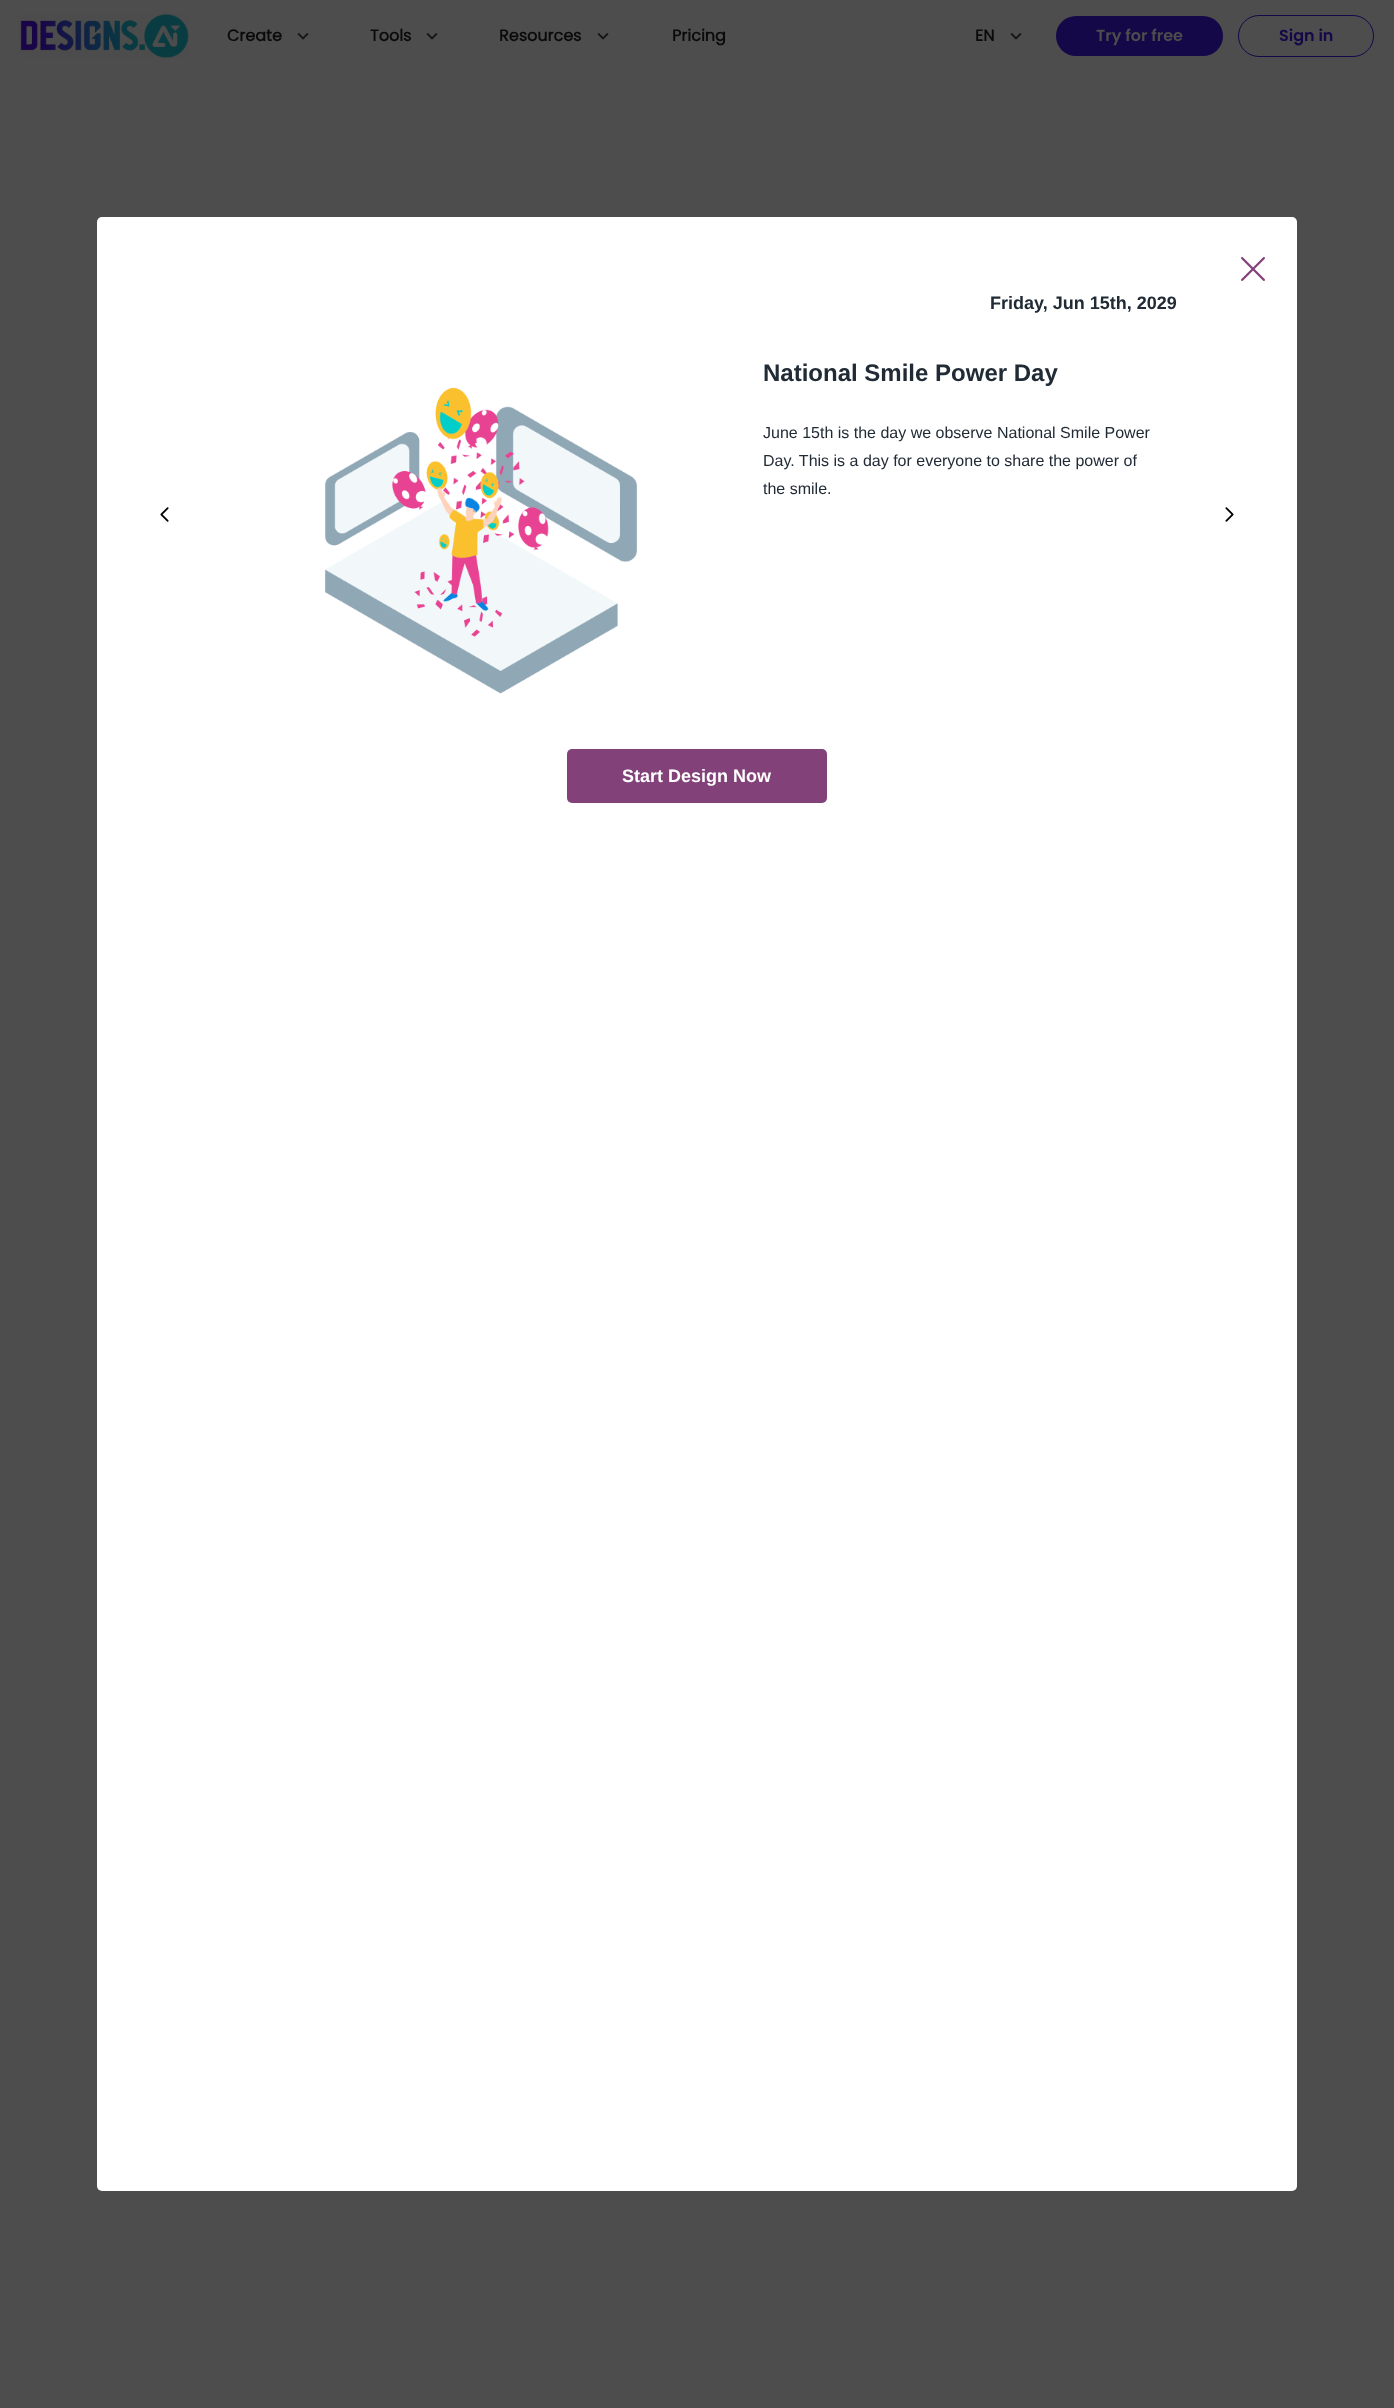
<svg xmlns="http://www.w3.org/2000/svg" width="1394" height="2408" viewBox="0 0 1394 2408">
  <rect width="100%" height="100%" fill="#4d4d4d"/>
  <image x="20" y="14" width="169" height="44" href="img/1.png"/>
  <image x="297" y="33" width="12" height="7" href="img/2.png"/>
  <image x="426" y="33" width="12" height="7" href="img/2.png"/>
  <image x="597" y="33" width="12" height="7" href="img/2.png"/>
  <image x="1010" y="33" width="12" height="7" href="img/2.png"/>
  <rect x="1056" y="16" width="167" height="40" rx="20" fill="#150848"/>
  <rect x="1238.5" y="15.5" width="135" height="41" rx="20.5" fill="none" stroke="#150848"/>
  <rect x="97" y="217" width="1200" height="1974" rx="5" fill="#fff"/>
  <image x="1241" y="257" width="24" height="24" href="img/3.png"/>
  <image x="325" y="387" width="313" height="307" href="img/4.png"/>
  <image x="160" y="507" width="9" height="15" href="img/5.png"/>
  <image x="1225" y="507" width="9" height="15" href="img/6.png"/>
  <rect x="567" y="749" width="260" height="54" rx="5" fill="#824179"/>
  <g font-family="Poppins" font-size="16" font-weight="bold" fill="#0a0a0a">
    <text x="227" y="41">Create</text>
    <text x="370" y="41">Tools</text>
    <text x="499" y="41">Resources</text>
    <text x="672" y="41">Pricing</text>
    <text x="975" y="41">EN</text>
  </g>
  <text x="1096" y="41" font-family="Poppins" font-size="16" font-weight="600" fill="#4d4d4d">Try for free</text>
  <text x="1279" y="41" font-family="Poppins" font-size="16" font-weight="600" fill="#150848">Sign in</text>
  <text x="990" y="309" font-family="Liberation Sans" font-size="18" font-weight="bold" fill="#212b36">Friday, Jun 15th, 2029</text>
  <text x="763" y="381" font-family="Liberation Sans" font-size="24" font-weight="bold" fill="#212b36">National Smile Power Day</text>
  <g font-family="Liberation Sans" font-size="16" fill="#212b36">
    <text x="763" y="438">June 15th is the day we observe National Smile Power</text>
    <text x="763" y="466">Day. This is a day for everyone to share the power of</text>
    <text x="763" y="494">the smile.</text>
  </g>
  <text x="622" y="782" font-family="Liberation Sans" font-size="18" font-weight="bold" fill="#fff">Start Design Now</text>
</svg>
